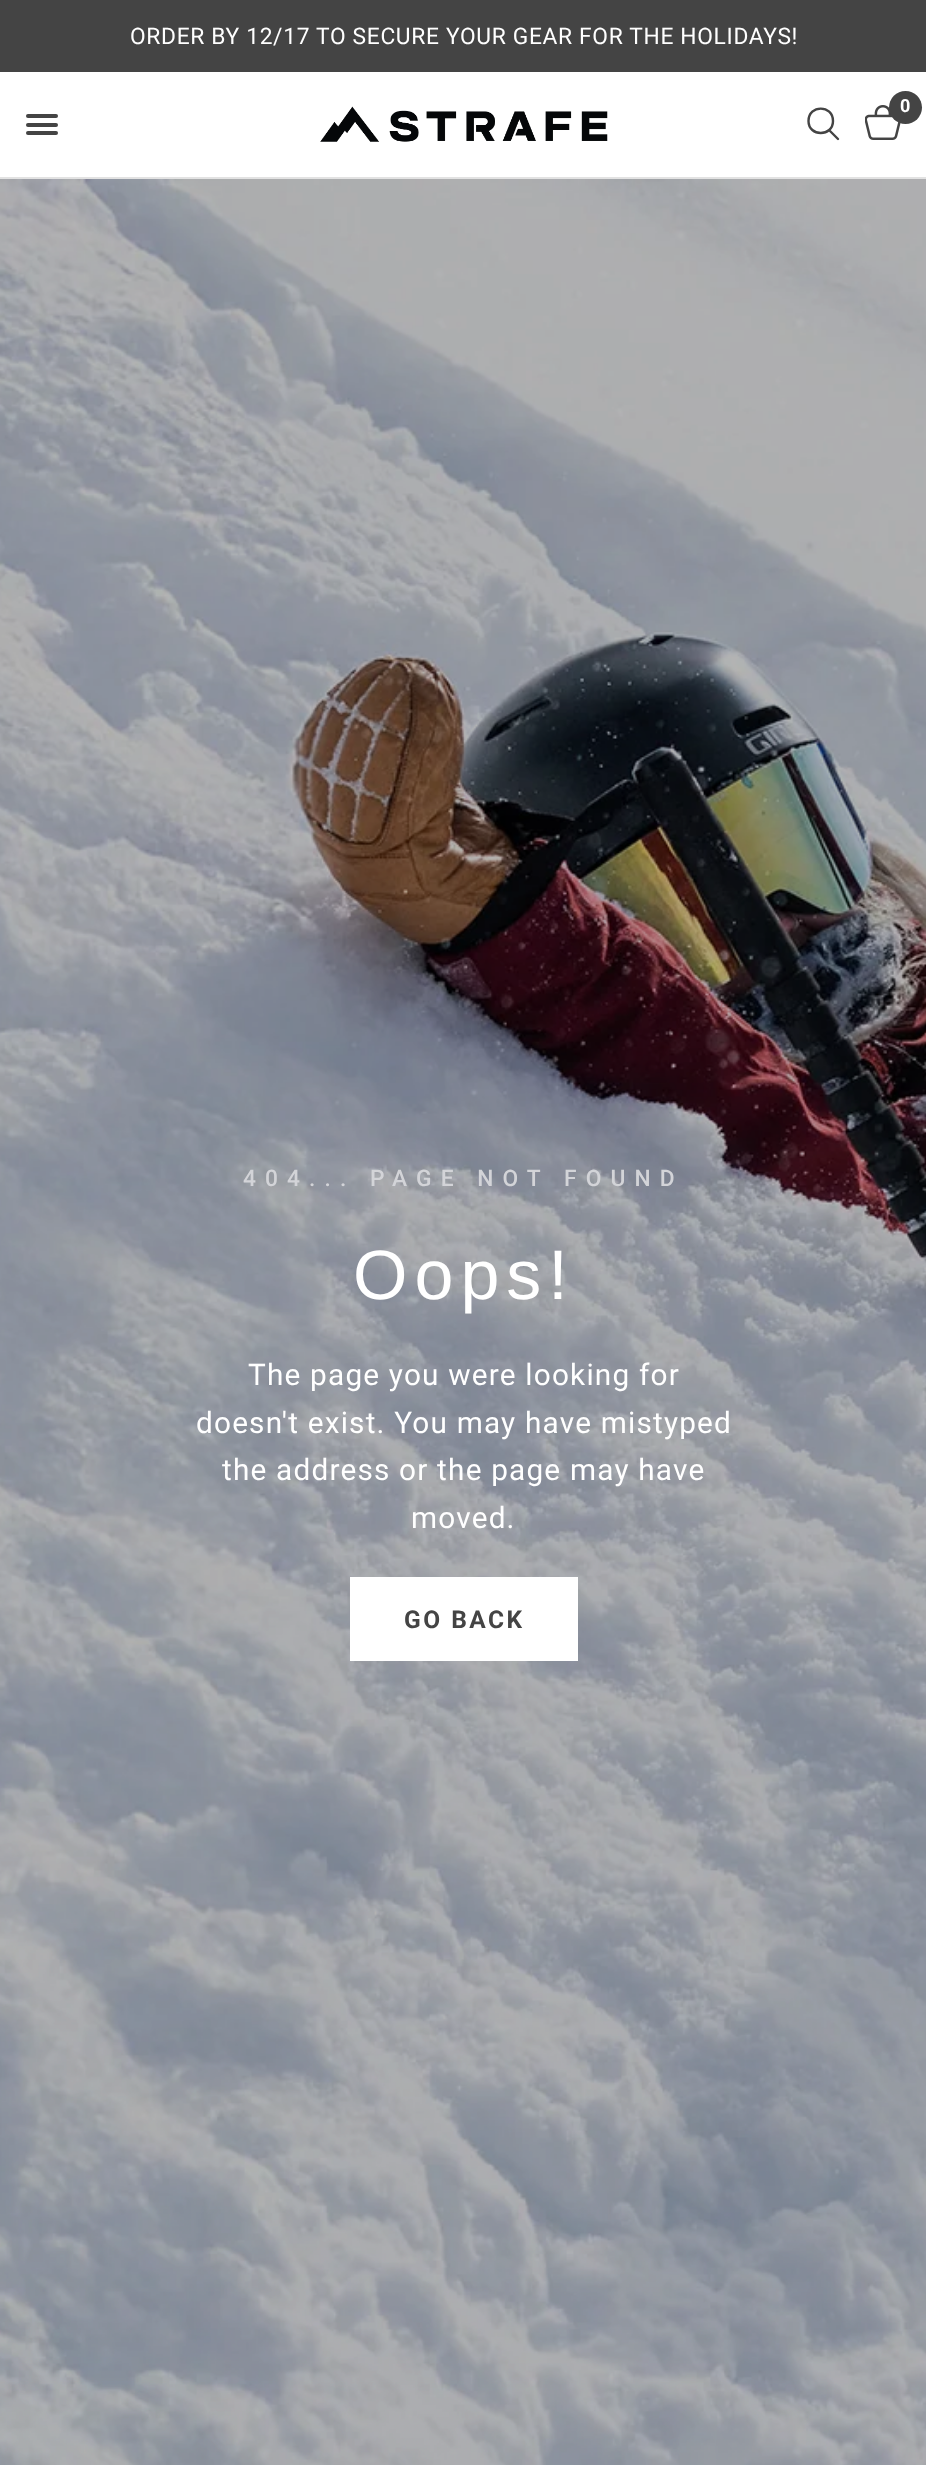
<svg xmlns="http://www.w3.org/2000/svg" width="926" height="2465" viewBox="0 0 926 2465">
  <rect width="100%" height="100%" fill="#fff"/>
  <path d="M0 0h926v72H0z" fill="#444"/>
  <path d="M0 177h926v2H0z" fill="#e2e2e2"/>
  <rect x="26" y="114" width="32" height="4" rx="2" fill="#444"/>
  <rect x="26" y="123" width="32" height="4" rx="2" fill="#444"/>
  <rect x="26" y="131" width="32" height="4" rx="2" fill="#444"/>
  <image x="320" y="106" width="288" height="36" href="img/1.png"/>
  <path d="M829.5 130.5L838 139M833 121C833 137 808.5 137 808.5 121C808.5 104.5 833 104.5 833 121Z" fill="none" stroke="#444" stroke-width="2.4" stroke-linecap="round" stroke-linejoin="round"/>
  <image x="865" y="105" width="36" height="35" href="img/2.png"/>
  <circle cx="905.5" cy="107.5" r="16.5" fill="#444"/>
  <image x="0" y="179" width="926" height="2286" href="img/3.png"/>
  <path d="M350 1577h228v84H350z" fill="#fff"/>
  <text x="130" y="44" font-family="Roboto" font-size="22.75" letter-spacing="0.68" fill="#fff">ORDER BY 12/17 TO SECURE YOUR GEAR FOR THE HOLIDAYS!</text>
  <text x="900" y="112" font-family="Roboto" font-size="18" font-weight="bold" letter-spacing="1.2" fill="#fff">0</text>
  <text x="243" y="1186" font-family="Roboto" font-size="22.75" font-weight="500" letter-spacing="9.1" fill="#d3d4d8">404... PAGE NOT FOUND</text>
  <text x="353" y="1299" font-family="Arimo" font-size="70" letter-spacing="7" fill="#fff">Oops!</text>
  <g font-family="Roboto" font-size="29.75" letter-spacing="1.2" fill="#fff">
    <text x="248" y="1385">The page you were looking for</text>
    <text x="196" y="1433">doesn't exist. You may have mistyped</text>
    <text x="222" y="1480">the address or the page may have</text>
    <text x="411" y="1528">moved.</text>
  </g>
  <text x="404" y="1628" font-family="Roboto" font-size="24.5" font-weight="bold" letter-spacing="2.5" fill="#444">GO BACK</text>
</svg>
